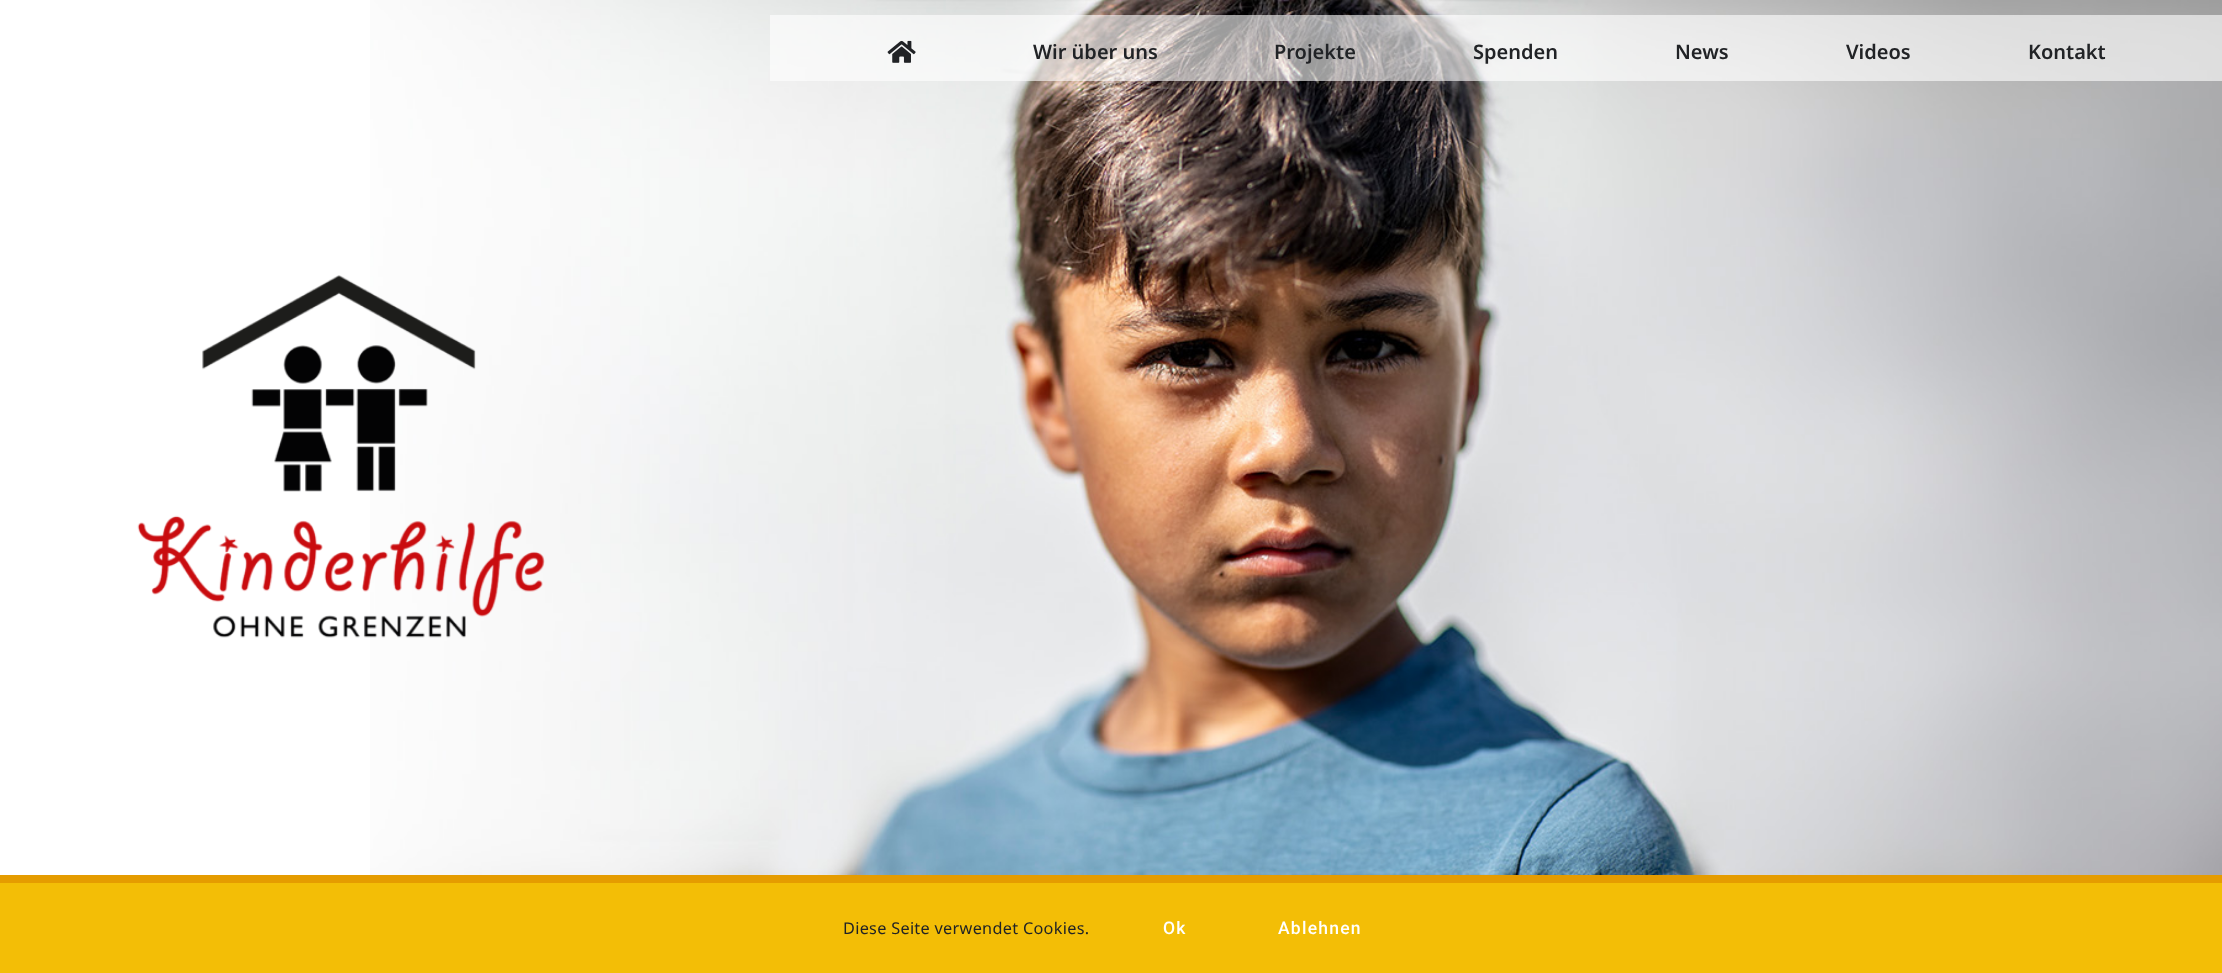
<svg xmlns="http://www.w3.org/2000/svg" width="2222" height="973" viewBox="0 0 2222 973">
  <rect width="100%" height="100%" fill="#e59c00"/>
  <path d="M0 0h370v875H0z" fill="#fff"/>
  <image x="370" y="0" width="1852" height="875" href="img/1.png"/>
  <path d="M770 15h1452v66H770z" fill="#ffffff9c"/>
  <image x="887" y="40" width="29" height="23" href="img/2.png"/>
  <image x="137" y="275" width="408" height="363" href="img/3.png"/>
  <path d="M0 883h2222v90H0z" fill="#f3be06"/>
  <g font-family="Noto Sans" font-size="20" font-weight="600" fill="#212326">
    <text x="1033" y="59">Wir über uns</text>
    <text x="1274" y="59">Projekte</text>
    <text x="1473" y="59">Spenden</text>
    <text x="1675" y="59">News</text>
    <text x="1846" y="59">Videos</text>
    <text x="2028" y="59">Kontakt</text>
  </g>
  <text x="843" y="934" font-family="Noto Sans" font-size="16.25" letter-spacing="0.3" fill="#212326">Diese Seite verwendet Cookies.</text>
  <g font-family="Roboto" font-size="17.5" font-weight="500" letter-spacing="1.25" fill="#fff">
    <text x="1163" y="934">Ok</text>
    <text x="1278" y="934">Ablehnen</text>
  </g>
</svg>
